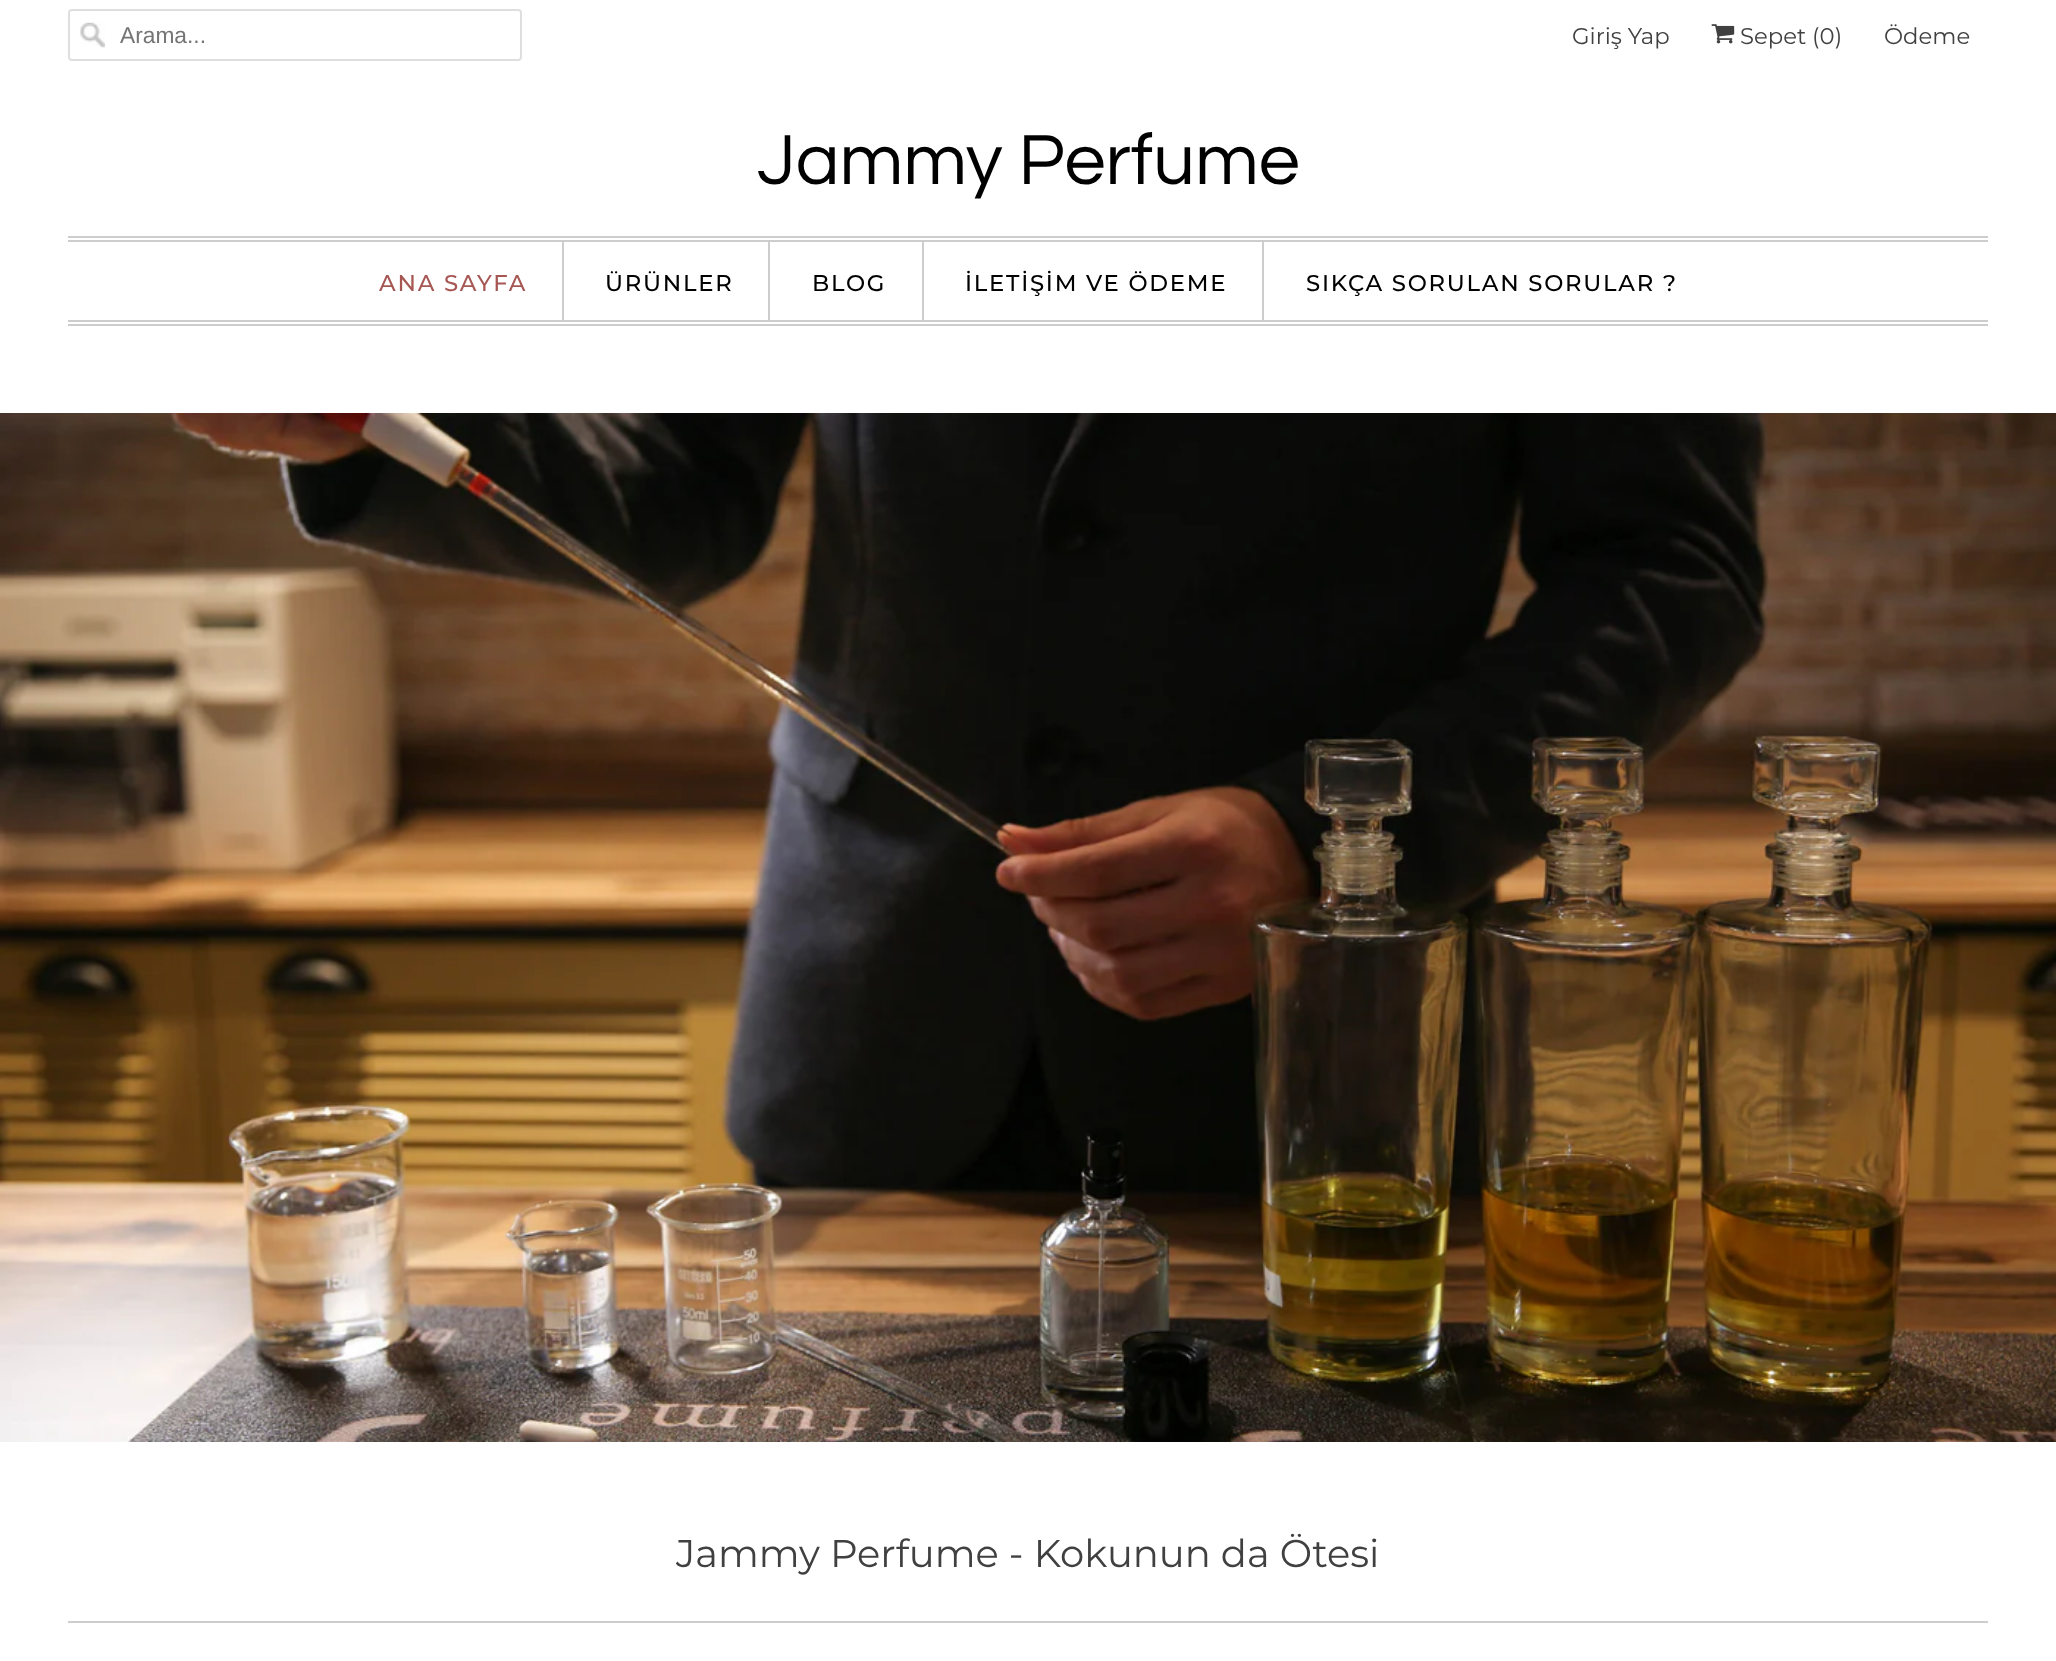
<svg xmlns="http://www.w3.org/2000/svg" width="2056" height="1661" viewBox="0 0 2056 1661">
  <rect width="100%" height="100%" fill="#fff"/>
  <image x="80" y="22" width="25" height="26" href="img/1.png"/>
  <rect x="69" y="10" width="452" height="50" rx="3" fill="none" stroke="#dfdfdf" stroke-width="2"/>
  <image x="1711" y="24" width="24" height="20" href="img/2.png"/>
  <path d="M68 236h1920v2H68z" fill="#cdcdcd"/>
  <path d="M68 240h1920v2H68z" fill="#cdcdcd"/>
  <path d="M68 320h1920v2H68z" fill="#cdcdcd"/>
  <path d="M68 324h1920v2H68z" fill="#cdcdcd"/>
  <path d="M562 242h2v78H562z" fill="#cdcdcd"/>
  <path d="M768 242h2v78H768z" fill="#cdcdcd"/>
  <path d="M922 242h2v78H922z" fill="#cdcdcd"/>
  <path d="M1262 242h2v78H1262z" fill="#cdcdcd"/>
  <image x="0" y="413" width="2056" height="1029" href="img/3.png"/>
  <path d="M68 1621h1920v2H68z" fill="#cdcdcd"/>
  <text x="120" y="43" font-family="Liberation Sans" font-size="22.75" fill="#757575">Arama...</text>
  <g font-family="Montserrat" font-size="22.75" fill="#404040">
    <text x="1572" y="44">Giriş Yap</text>
    <text x="1740" y="44">Sepet (0)</text>
    <text x="1884" y="44">Ödeme</text>
  </g>
  <text x="757" y="184" font-family="Questrial" font-size="73.5" fill="#000">Jammy Perfume</text>
  <text x="379" y="291" font-family="Montserrat" font-size="22.75" font-weight="500" letter-spacing="1.75" fill="#a65754">ANA SAYFA</text>
  <g font-family="Montserrat" font-size="22.75" font-weight="500" letter-spacing="1.75" fill="#000">
    <text x="605" y="291">ÜRÜNLER</text>
    <text x="812" y="291">BLOG</text>
    <text x="965" y="291">İLETİŞİM VE ÖDEME</text>
    <text x="1306" y="291">SIKÇA SORULAN SORULAR ?</text>
  </g>
  <text x="676" y="1567" font-family="Montserrat" font-size="38.5" fill="#404040">Jammy Perfume - Kokunun da Ötesi</text>
</svg>
